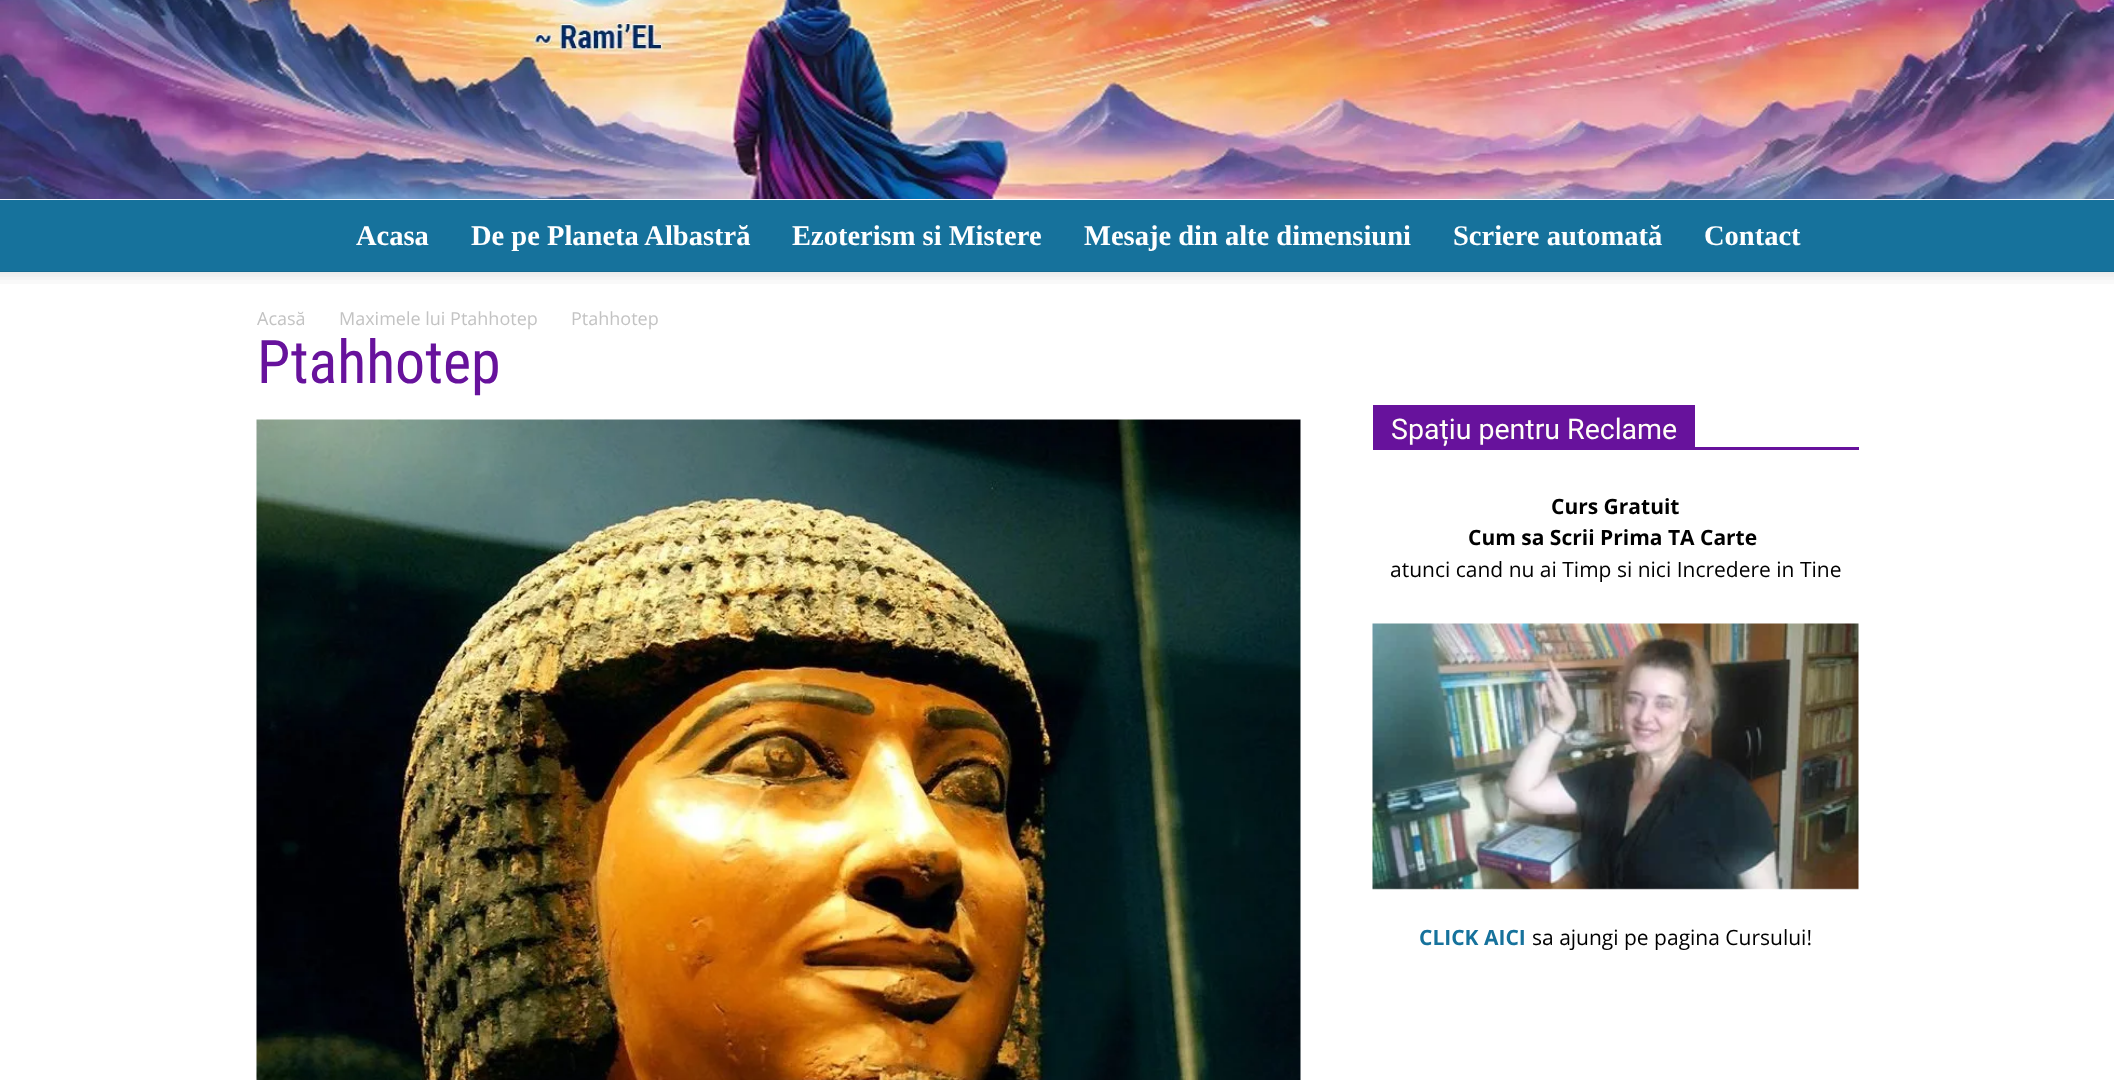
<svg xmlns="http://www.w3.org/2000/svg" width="2114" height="1080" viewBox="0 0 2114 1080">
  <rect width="100%" height="100%" fill="#fff"/>
  <image x="0" y="0" width="2114" height="199" href="img/1.png"/>
  <path d="M0 200h2114v72H0z" fill="#16729c"/>
  <image x="0" y="271" width="2114" height="13" href="img/2.png"/>
  <image x="256" y="419" width="1045" height="661" href="img/3.png"/>
  <path d="M1373 447h486v3H1373z" fill="#67129c"/>
  <path d="M1373 405h322v42H1373z" fill="#67129c"/>
  <image x="1372" y="623" width="487" height="267" href="img/4.png"/>
  <g font-family="Liberation Serif" font-size="28.5" font-weight="bold" fill="#fff">
    <text x="356" y="245">Acasa</text>
    <text x="471" y="245">De pe Planeta Albastră</text>
    <text x="792" y="245">Ezoterism si Mistere</text>
    <text x="1084" y="245">Mesaje din alte dimensiuni</text>
    <text x="1453" y="245">Scriere automată</text>
    <text x="1704" y="245">Contact</text>
  </g>
  <g font-family="Open Sans" font-size="18" fill="#c3c3c3">
    <text x="257" y="325">Acasă</text>
    <text x="339" y="325">Maximele lui Ptahhotep</text>
    <text x="571" y="325">Ptahhotep</text>
  </g>
  <text x="257" y="383" font-family="Roboto Condensed" font-size="60" fill="#67129c">Ptahhotep</text>
  <text x="1391" y="439" font-family="Roboto" font-size="28.5" fill="#fffff7">Spațiu pentru Reclame</text>
  <g font-family="Open Sans" font-size="21" font-weight="bold" fill="#000">
    <text x="1551" y="514">Curs Gratuit</text>
    <text x="1468" y="545">Cum sa Scrii Prima TA Carte</text>
  </g>
  <text x="1390" y="577" font-family="Open Sans" font-size="21" fill="#000">atunci cand nu ai Timp si nici Incredere in Tine</text>
  <text x="1419" y="945" font-family="Open Sans" font-size="21" font-weight="bold" fill="#16729c">CLICK AICI</text>
  <text x="1532" y="945" font-family="Open Sans" font-size="21" fill="#000">sa ajungi pe pagina Cursului!</text>
</svg>
